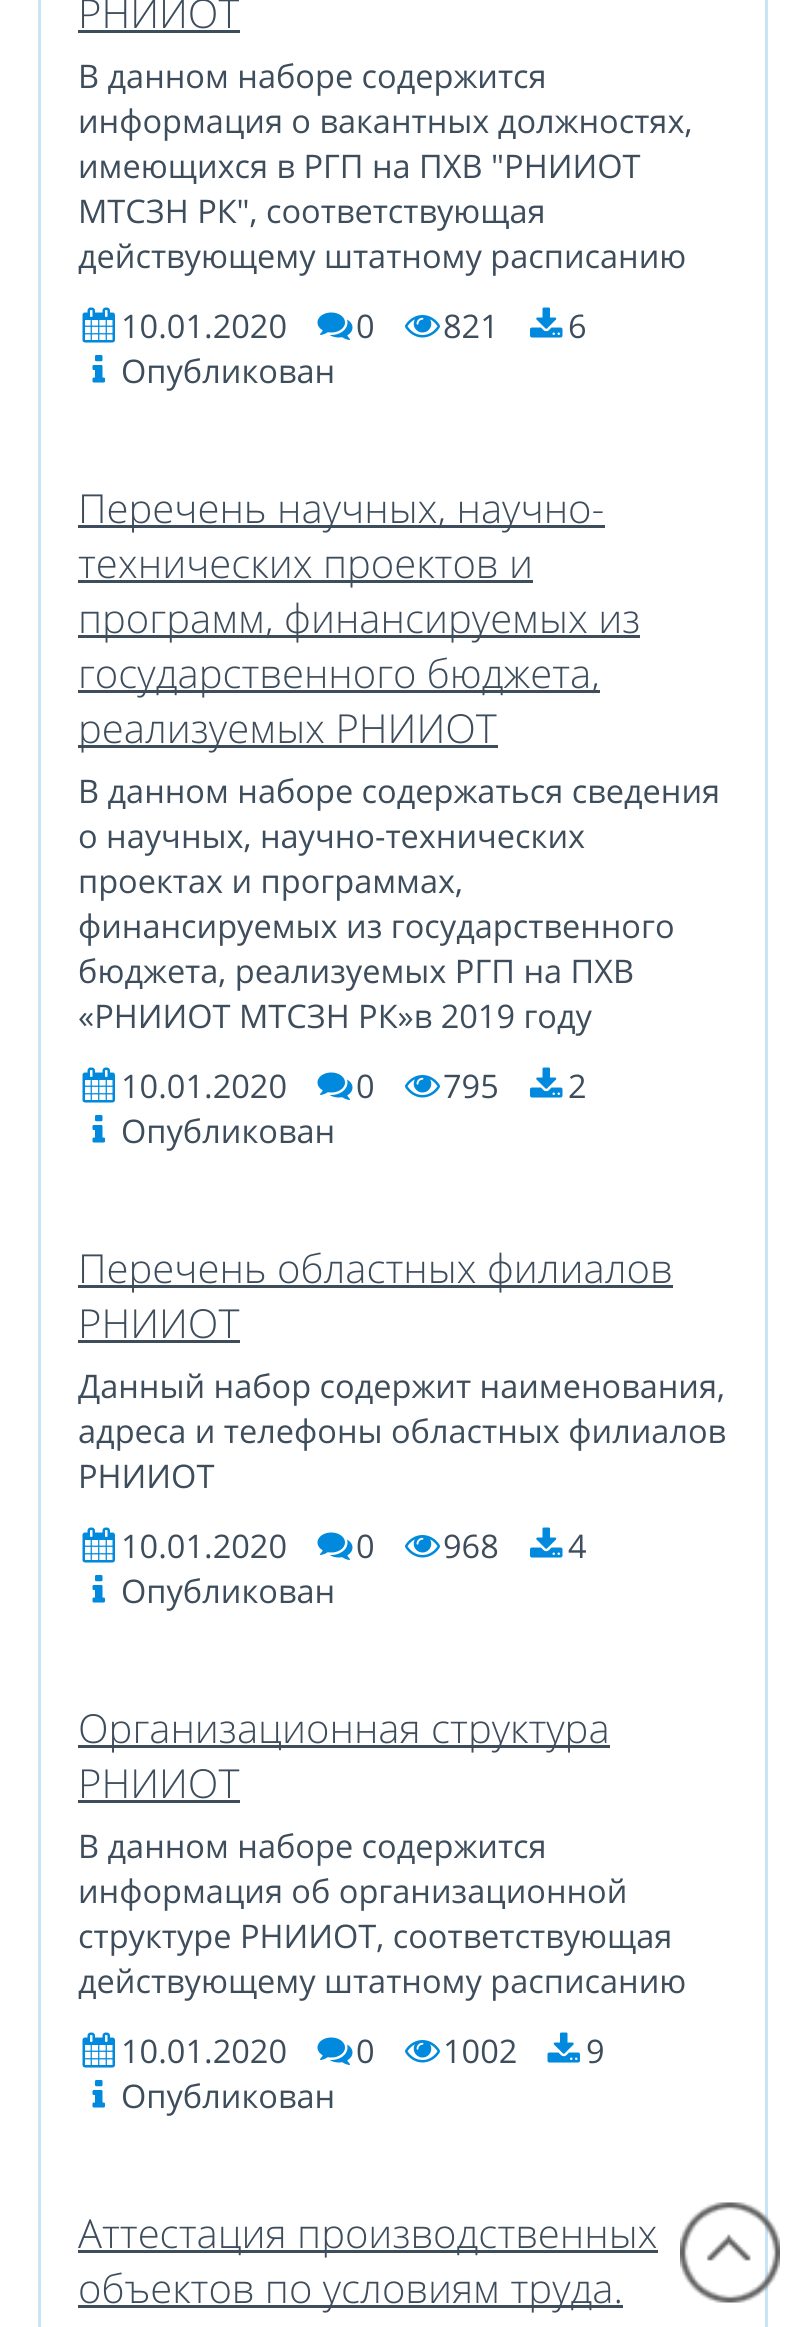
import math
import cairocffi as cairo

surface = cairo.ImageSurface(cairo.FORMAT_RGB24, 805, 2327)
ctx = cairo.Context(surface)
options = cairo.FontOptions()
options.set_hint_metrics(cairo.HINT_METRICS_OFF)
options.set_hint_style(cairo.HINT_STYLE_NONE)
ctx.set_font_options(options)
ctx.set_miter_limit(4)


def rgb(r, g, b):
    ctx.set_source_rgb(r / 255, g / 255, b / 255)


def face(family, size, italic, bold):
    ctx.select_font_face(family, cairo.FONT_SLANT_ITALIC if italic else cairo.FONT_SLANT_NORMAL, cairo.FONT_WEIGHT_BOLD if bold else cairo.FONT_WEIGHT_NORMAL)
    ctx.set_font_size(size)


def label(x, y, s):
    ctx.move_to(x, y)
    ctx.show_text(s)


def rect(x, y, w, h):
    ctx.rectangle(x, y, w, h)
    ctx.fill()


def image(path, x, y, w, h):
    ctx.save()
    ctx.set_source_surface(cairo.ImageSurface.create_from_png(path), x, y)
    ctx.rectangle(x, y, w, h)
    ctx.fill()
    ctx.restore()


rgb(255, 255, 255)
ctx.paint()
ctx.rectangle(39.5, -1.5, 727, 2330)
rgb(200, 228, 245)
ctx.set_line_width(3)
ctx.stroke()
face('Open Sans Light', 40, 0, 0)
rgb(62, 77, 92)
label(78, 28, 'РНИИОТ')
rect(78, 30, 162, 3)
face('Open Sans', 32.5, 0, 0)
label(78, 88, 'В данном наборе содержится')
label(78, 133, 'информация о вакантных должностях,')
label(78, 178, 'имеющихся в РГП на ПХВ "РНИИОТ')
label(78, 223, 'МТСЗН РК", соответствующая')
label(78, 268, 'действующему штатному расписанию')
image('image0.png', 82, 307, 33, 36)
label(121, 338, '10.01.2020')
image('image1.png', 317, 312, 36, 28)
label(356, 338, '0')
image('image2.png', 405, 315, 35, 23)
label(443, 338, '821')
image('image3.png', 530, 307, 33, 31)
label(568, 338, '6')
image('image4.png', 92, 355, 13, 28)
label(121, 383, 'Опубликован')
rect(78, 525, 527, 3)
face('Open Sans Light', 40, 0, 0)
label(78, 523, 'Перечень научных, научно-')
rect(78, 580, 455, 3)
label(78, 578, 'технических проектов и')
rect(78, 635, 562, 3)
label(78, 633, 'программ, финансируемых из')
rect(78, 690, 522, 3)
label(78, 688, 'государственного бюджета,')
rect(78, 745, 420, 3)
label(78, 743, 'реализуемых РНИИОТ')
face('Open Sans', 32.5, 0, 0)
label(78, 803, 'В данном наборе содержаться сведения')
label(78, 848, 'о научных, научно-технических')
label(78, 893, 'проектах и программах,')
label(78, 938, 'финансируемых из государственного')
label(78, 983, 'бюджета, реализуемых РГП на ПХВ')
label(78, 1028, '«РНИИОТ МТСЗН РК»в 2019 году')
image('image0.png', 82, 1067, 33, 36)
label(121, 1098, '10.01.2020')
image('image1.png', 317, 1072, 36, 28)
label(356, 1098, '0')
image('image2.png', 405, 1075, 35, 23)
label(443, 1098, '795')
image('image3.png', 530, 1067, 33, 31)
label(568, 1098, '2')
image('image4.png', 92, 1115, 13, 28)
label(121, 1143, 'Опубликован')
rect(78, 1285, 595, 3)
face('Open Sans Light', 40, 0, 0)
label(78, 1283, 'Перечень областных филиалов')
label(78, 1338, 'РНИИОТ')
rect(78, 1340, 162, 3)
face('Open Sans', 32.5, 0, 0)
label(78, 1398, 'Данный набор содержит наименования,')
label(78, 1443, 'адреса и телефоны областных филиалов')
label(78, 1488, 'РНИИОТ')
image('image0.png', 82, 1527, 33, 36)
label(121, 1558, '10.01.2020')
image('image1.png', 317, 1532, 36, 28)
label(356, 1558, '0')
image('image2.png', 405, 1535, 35, 23)
label(443, 1558, '968')
image('image3.png', 530, 1527, 33, 31)
label(568, 1558, '4')
image('image4.png', 92, 1575, 13, 28)
label(121, 1603, 'Опубликован')
rect(78, 1745, 532, 3)
face('Open Sans Light', 40, 0, 0)
label(78, 1743, 'Организационная структура')
label(78, 1798, 'РНИИОТ')
rect(78, 1800, 162, 3)
face('Open Sans', 32.5, 0, 0)
label(78, 1858, 'В данном наборе содержится')
label(78, 1903, 'информация об организационной')
label(78, 1948, 'структуре РНИИОТ, соответствующая')
label(78, 1993, 'действующему штатному расписанию')
image('image0.png', 82, 2032, 33, 36)
label(121, 2063, '10.01.2020')
image('image1.png', 317, 2037, 36, 28)
label(356, 2063, '0')
image('image2.png', 405, 2040, 35, 23)
label(443, 2063, '1002')
image('image5.png', 547, 2032, 33, 31)
label(586, 2063, '9')
image('image4.png', 92, 2080, 13, 28)
label(121, 2108, 'Опубликован')
rect(78, 2250, 580, 3)
face('Open Sans Light', 40, 0, 0)
label(78, 2248, 'Аттестация производственных')
rect(78, 2305, 545, 3)
label(78, 2303, 'объектов по условиям труда.')
image('image6.png', 680, 2202, 100, 101)
surface.write_to_png('render.png')
